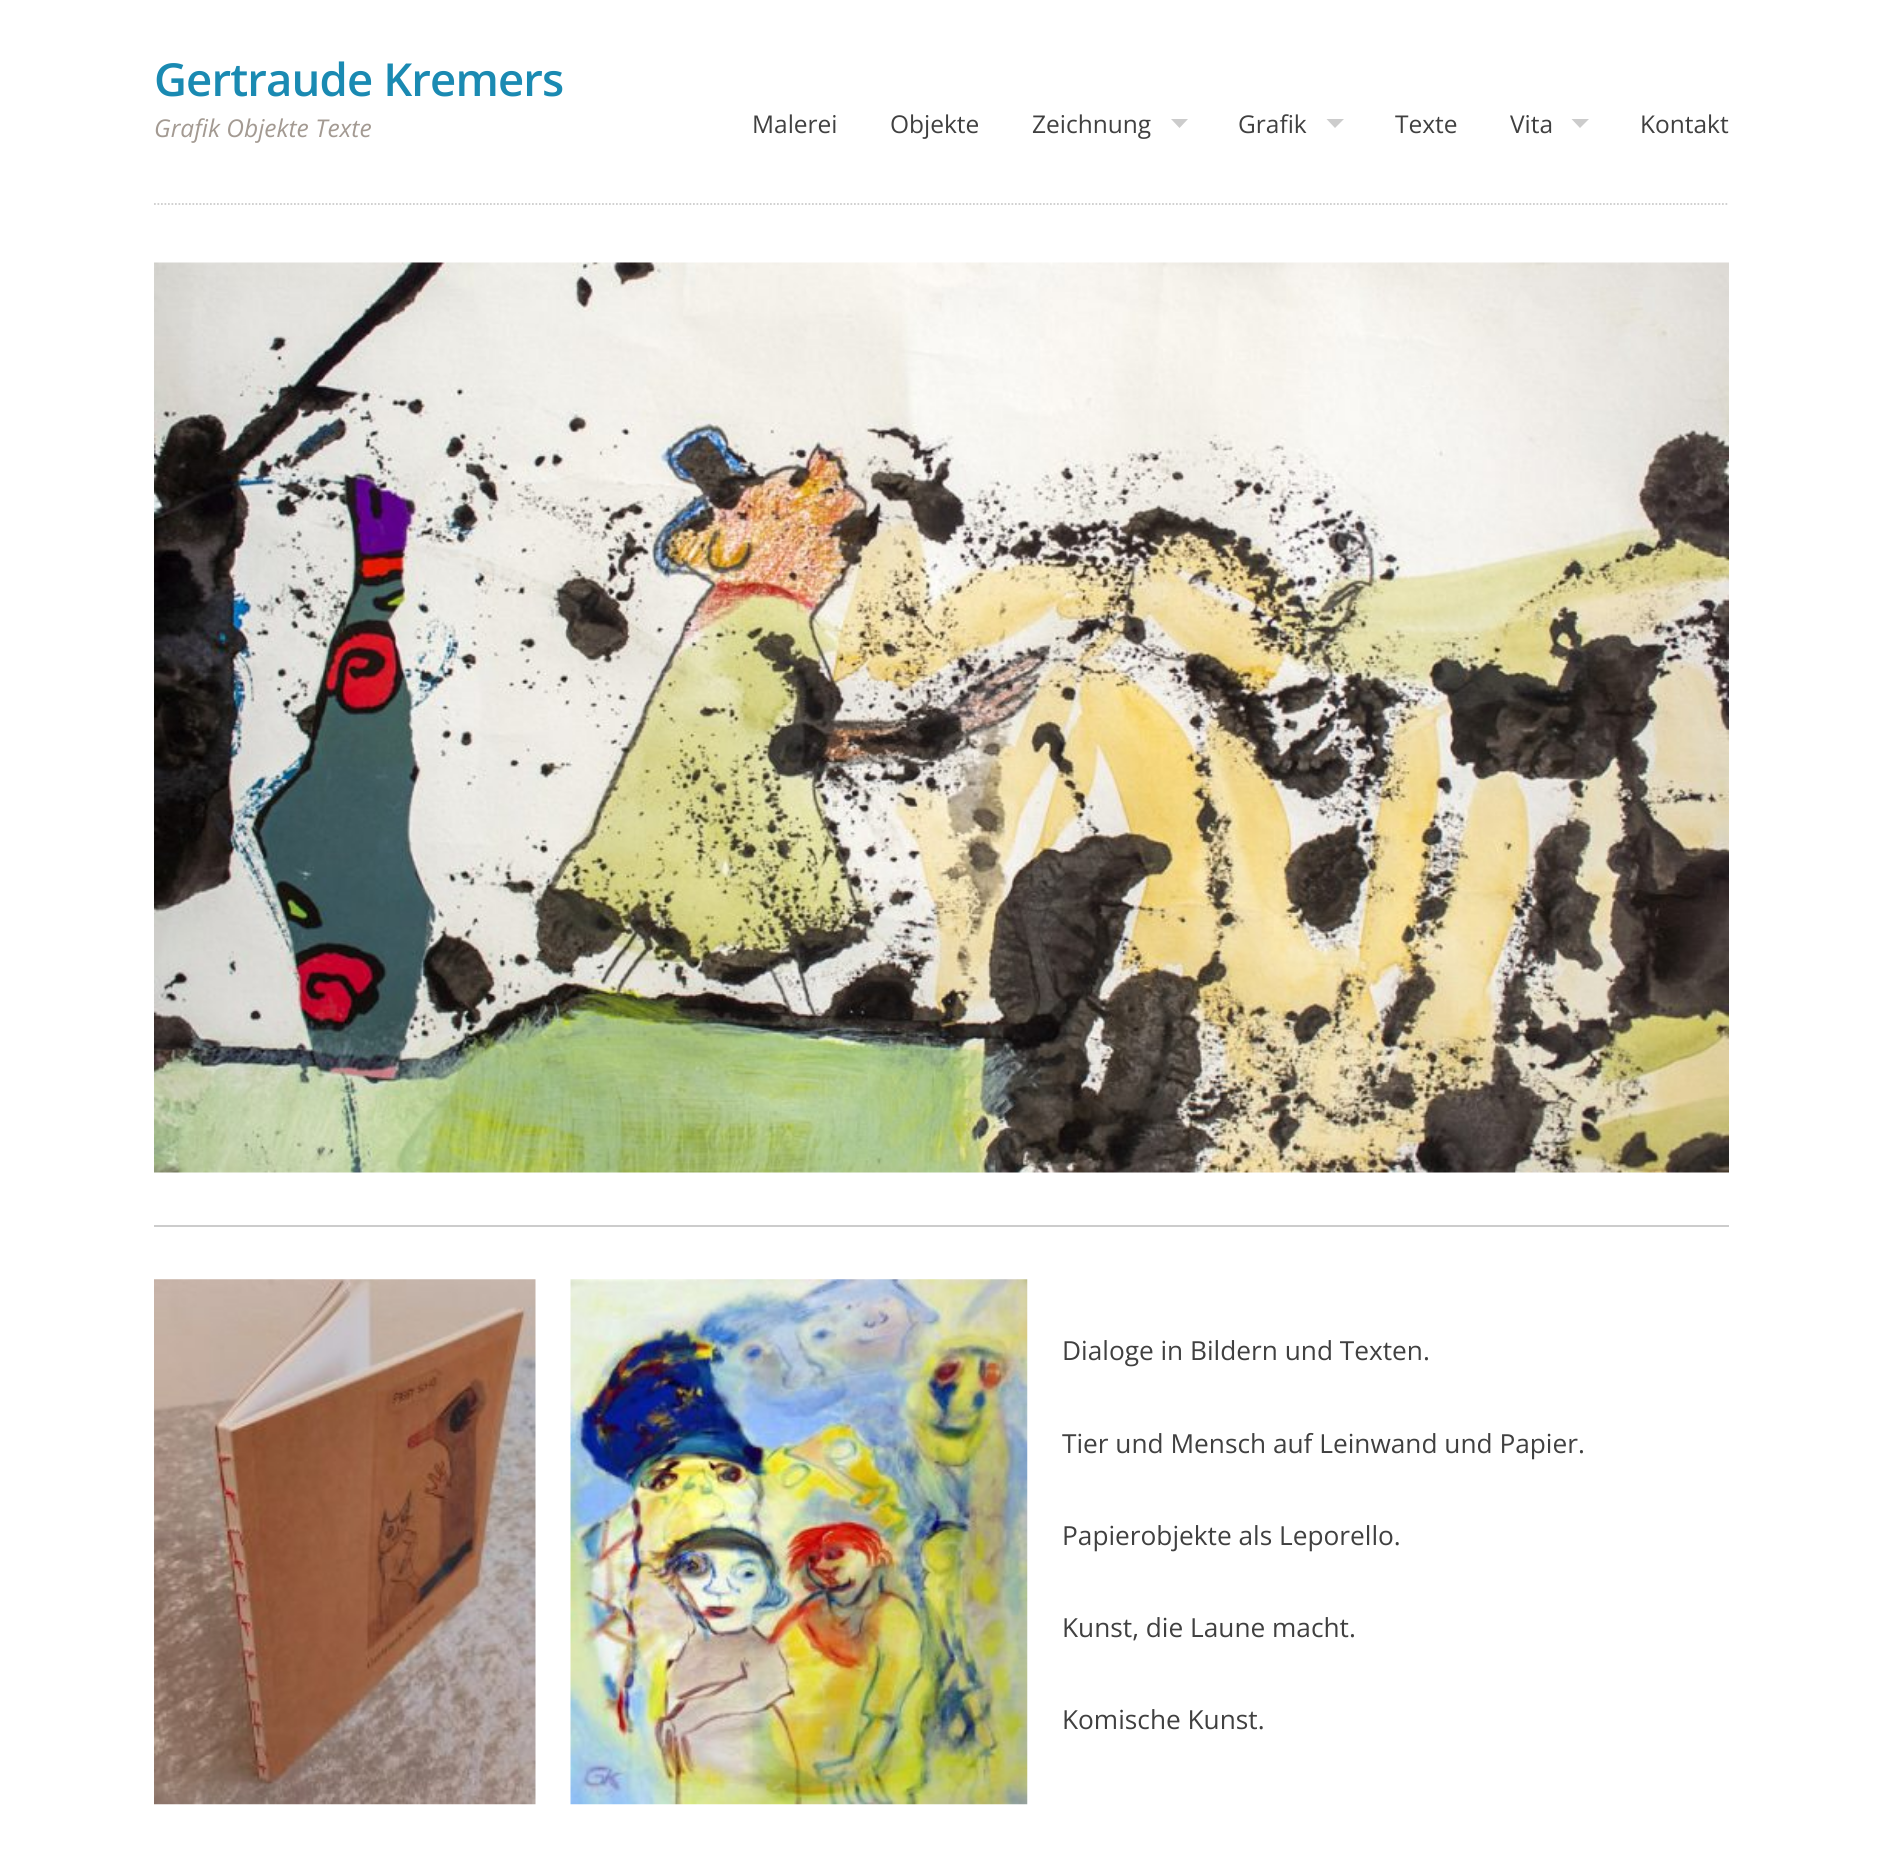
import math
import cairocffi as cairo

surface = cairo.ImageSurface(cairo.FORMAT_RGB24, 1882, 1861)
ctx = cairo.Context(surface)
options = cairo.FontOptions()
options.set_hint_metrics(cairo.HINT_METRICS_OFF)
options.set_hint_style(cairo.HINT_STYLE_NONE)
ctx.set_font_options(options)
ctx.set_miter_limit(4)


def rgb(r, g, b):
    ctx.set_source_rgb(r / 255, g / 255, b / 255)


def face(family, size, italic, bold):
    ctx.select_font_face(family, cairo.FONT_SLANT_ITALIC if italic else cairo.FONT_SLANT_NORMAL, cairo.FONT_WEIGHT_BOLD if bold else cairo.FONT_WEIGHT_NORMAL)
    ctx.set_font_size(size)


def label(x, y, s):
    ctx.move_to(x, y)
    ctx.show_text(s)


def tracked(x, y, s, letter, word):
    ctx.move_to(x, y)
    for ch in s:
        ctx.show_text(ch)
        ctx.rel_move_to(letter + word * (ch == ' '), 0)


def rect(x, y, w, h):
    ctx.rectangle(x, y, w, h)
    ctx.fill()


def image(path, x, y, w, h):
    ctx.save()
    ctx.set_source_surface(cairo.ImageSurface.create_from_png(path), x, y)
    ctx.rectangle(x, y, w, h)
    ctx.fill()
    ctx.restore()


rgb(255, 255, 255)
ctx.paint()
face('Open Sans SemiBold', 45.5, 0, 0)
rgb(26, 138, 178)
tracked(154, 96, 'Gertraude Kremers', -0.9, 0)
face('Open Sans', 24.5, 1, 0)
rgb(163, 154, 146)
label(154, 137, 'Grafik Objekte Texte')
face('Open Sans', 24.5, 0, 0)
rgb(64, 64, 64)
label(752, 133, 'Malerei')
label(890, 133, 'Objekte')
label(1032, 133, 'Zeichnung')
rgb(204, 204, 204)
ctx.new_path()
ctx.move_to(1171, 119)
ctx.line_to(1188, 119)
ctx.line_to(1179.5, 128)
ctx.close_path()
ctx.fill()
rgb(64, 64, 64)
label(1238, 133, 'Grafik')
rgb(204, 204, 204)
ctx.new_path()
ctx.move_to(1326.5, 119)
ctx.line_to(1344, 119)
ctx.line_to(1335, 128)
ctx.close_path()
ctx.fill()
rgb(64, 64, 64)
label(1395, 133, 'Texte')
label(1510, 133, 'Vita')
rgb(204, 204, 204)
ctx.new_path()
ctx.move_to(1571.5, 119)
ctx.line_to(1589, 119)
ctx.line_to(1580, 128)
ctx.close_path()
ctx.fill()
rgb(64, 64, 64)
label(1640, 133, 'Kontakt')
ctx.new_path()
ctx.move_to(154, 204)
ctx.line_to(1729, 204)
rgb(204, 204, 204)
ctx.set_line_width(1.8)
ctx.set_dash([1.75, 1.75])
ctx.stroke()
image('image0.png', 154, 262, 1575, 911)
rect(154, 1225, 1575, 2)
image('image1.png', 154, 1279, 382, 526)
image('image2.png', 570, 1279, 458, 526)
face('Open Sans', 26.25, 0, 0)
rgb(64, 64, 64)
label(1062, 1360, 'Dialoge in Bildern und Texten.')
label(1062, 1453, 'Tier und Mensch auf Leinwand und Papier.')
label(1062, 1545, 'Papierobjekte als Leporello.')
label(1062, 1637, 'Kunst, die Laune macht.')
label(1062, 1729, 'Komische Kunst.')
surface.write_to_png('render.png')
